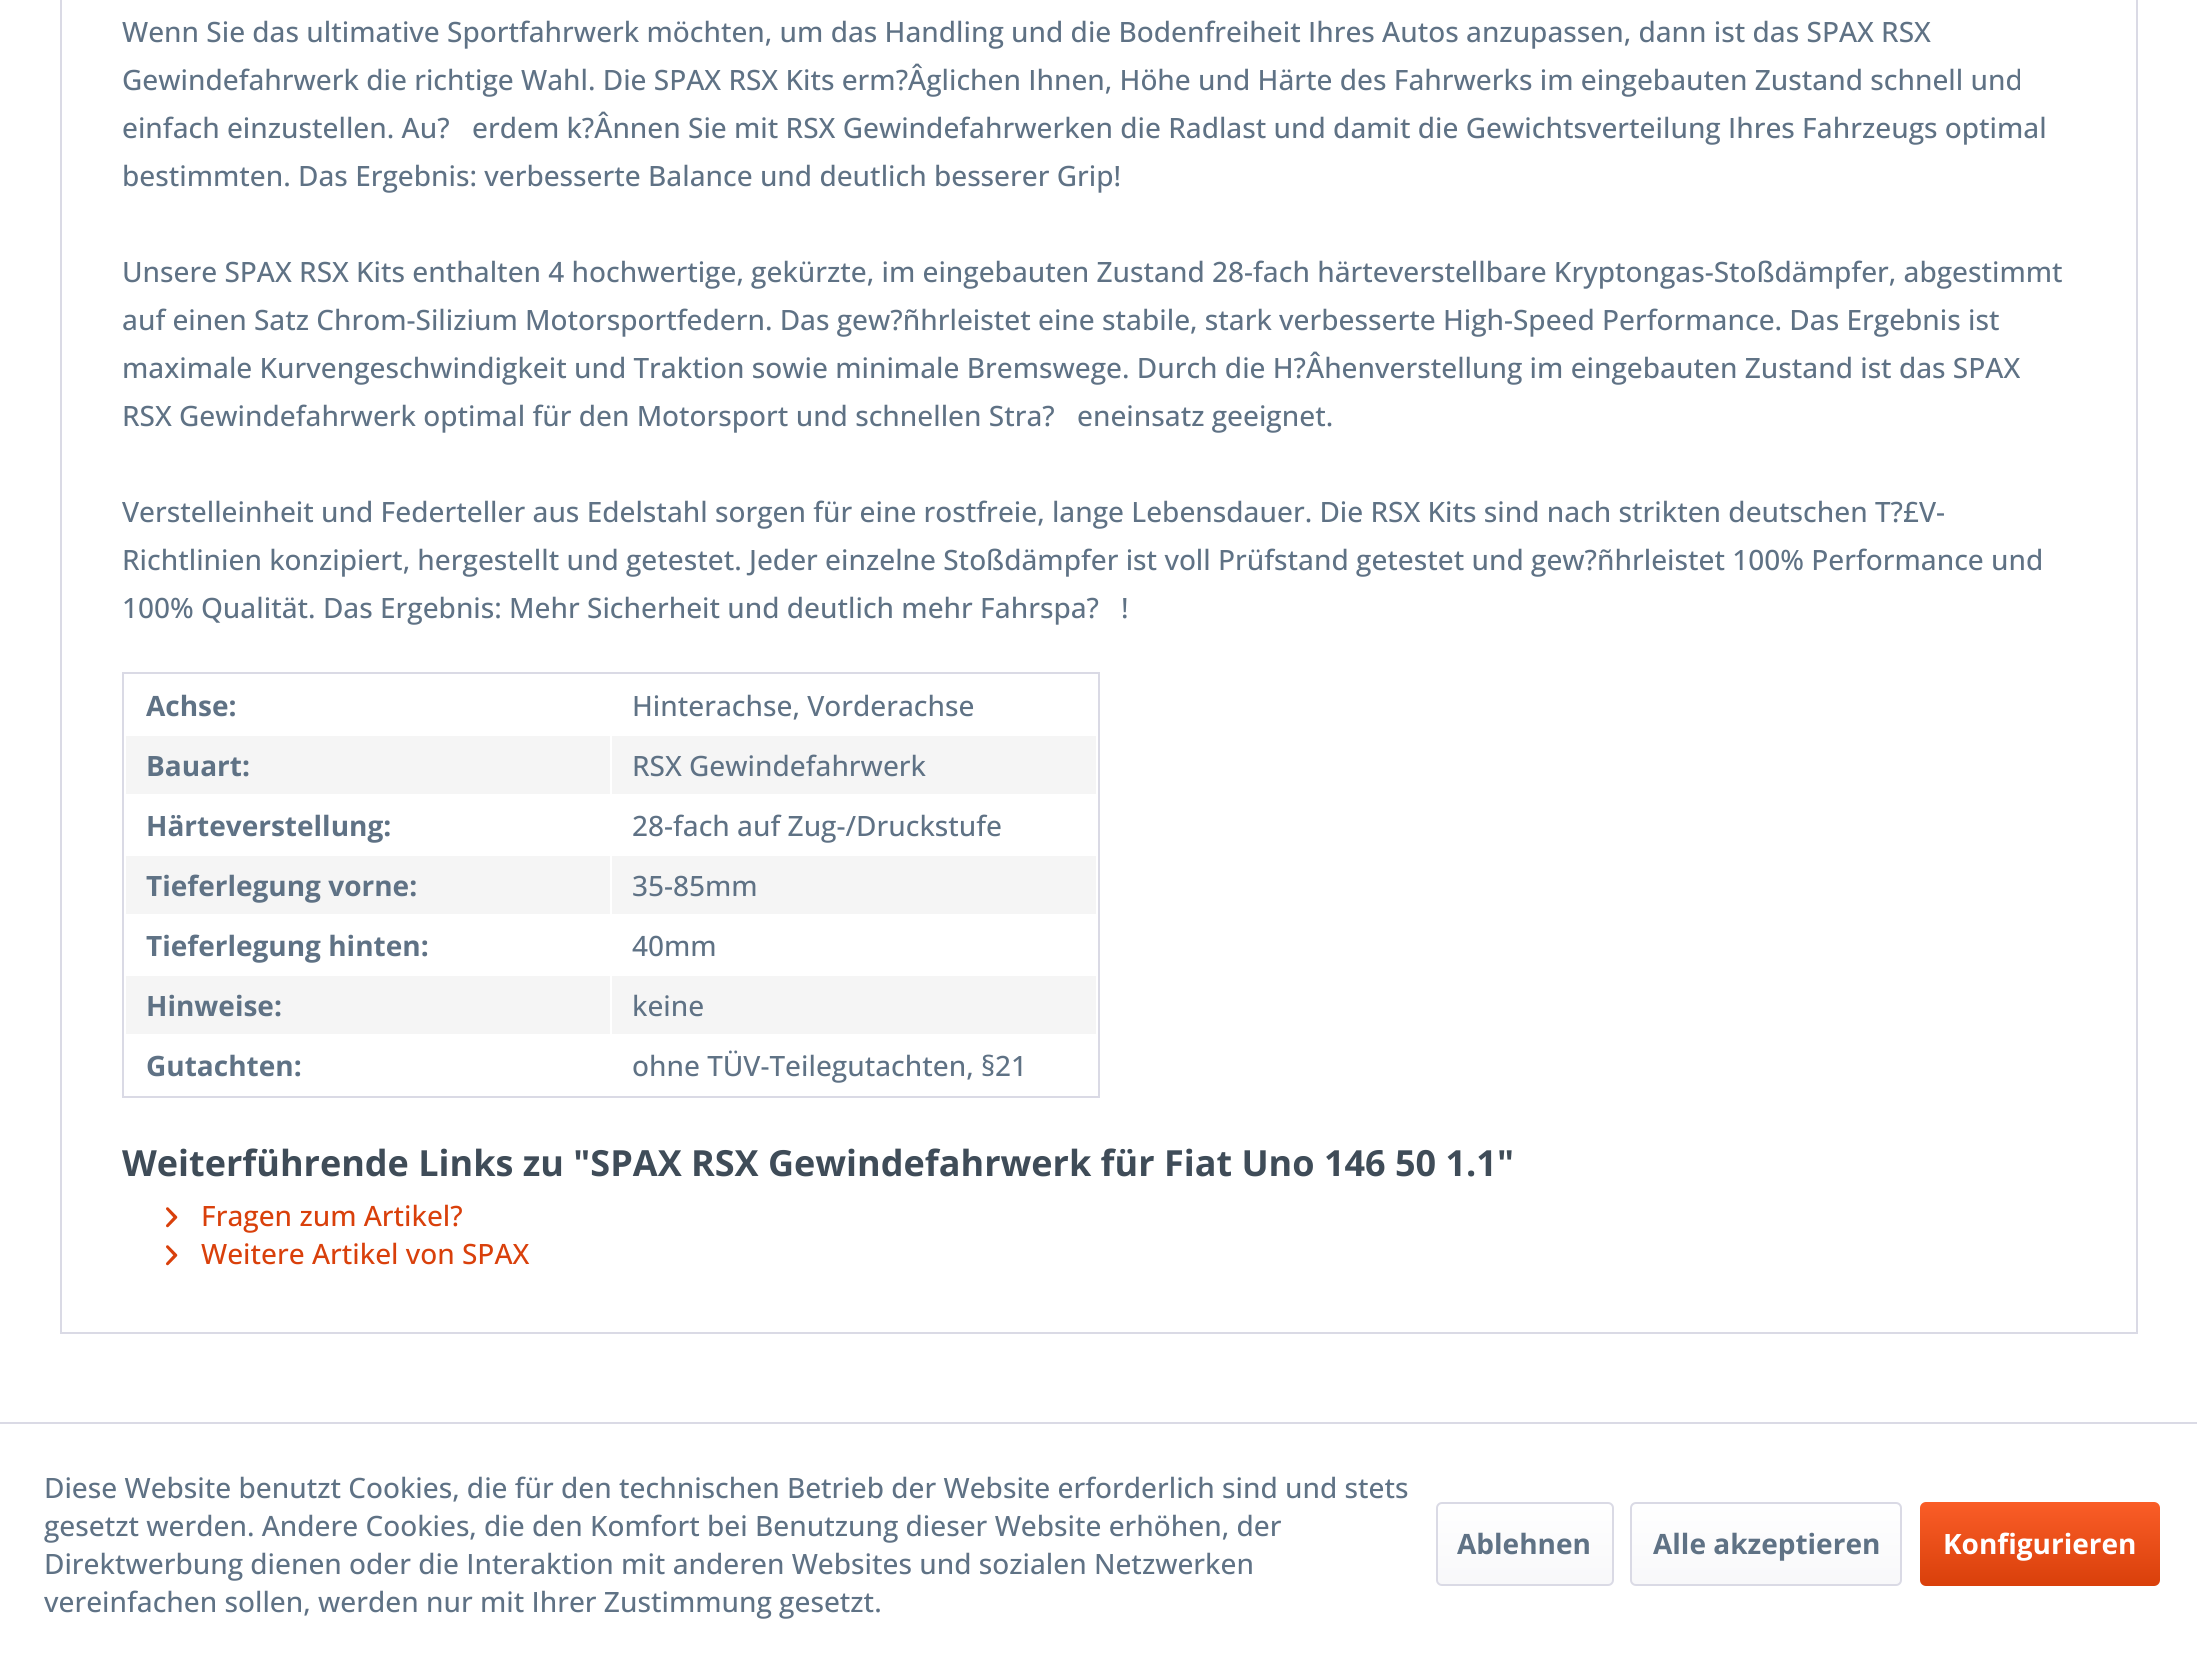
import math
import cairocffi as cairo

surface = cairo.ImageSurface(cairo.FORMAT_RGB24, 2197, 1663)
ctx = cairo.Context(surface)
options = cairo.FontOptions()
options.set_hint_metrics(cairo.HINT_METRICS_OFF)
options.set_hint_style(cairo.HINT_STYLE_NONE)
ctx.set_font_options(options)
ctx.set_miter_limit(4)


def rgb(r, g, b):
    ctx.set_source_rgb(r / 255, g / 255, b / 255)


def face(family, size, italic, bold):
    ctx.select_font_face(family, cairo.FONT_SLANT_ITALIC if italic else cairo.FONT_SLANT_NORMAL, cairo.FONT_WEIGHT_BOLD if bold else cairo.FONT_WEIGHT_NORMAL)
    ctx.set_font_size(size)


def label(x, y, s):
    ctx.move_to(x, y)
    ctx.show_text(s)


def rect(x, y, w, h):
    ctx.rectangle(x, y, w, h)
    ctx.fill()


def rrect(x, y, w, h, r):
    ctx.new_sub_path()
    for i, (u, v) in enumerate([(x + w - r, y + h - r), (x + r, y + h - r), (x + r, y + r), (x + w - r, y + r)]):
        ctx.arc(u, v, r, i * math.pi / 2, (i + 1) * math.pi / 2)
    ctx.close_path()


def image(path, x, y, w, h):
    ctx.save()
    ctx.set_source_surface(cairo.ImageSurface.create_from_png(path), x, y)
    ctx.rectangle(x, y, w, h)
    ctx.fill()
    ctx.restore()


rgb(255, 255, 255)
ctx.paint()
ctx.rectangle(61, -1, 2076, 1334)
rgb(218, 218, 229)
ctx.stroke()
face('Open Sans Medium', 28, 0, 0)
rgb(95, 114, 133)
label(122, 42, 'Wenn Sie das ultimative Sportfahrwerk möchten, um das Handling und die Bodenfreiheit Ihres Autos anzupassen, dann ist das SPAX RSX')
label(122, 90, 'Gewindefahrwerk die richtige Wahl. Die SPAX RSX Kits erm?Âglichen Ihnen, Höhe und Härte des Fahrwerks im eingebauten Zustand schnell und')
label(122, 138, 'einfach einzustellen. Au?')
label(472, 138, 'erdem k?Ânnen Sie mit RSX Gewindefahrwerken die Radlast und damit die Gewichtsverteilung Ihres Fahrzeugs optimal')
label(122, 186, 'bestimmten. Das Ergebnis: verbesserte Balance und deutlich besserer Grip!')
label(122, 282, 'Unsere SPAX RSX Kits enthalten 4 hochwertige, gekürzte, im eingebauten Zustand 28-fach härteverstellbare Kryptongas-Stoßdämpfer, abgestimmt')
label(122, 330, 'auf einen Satz Chrom-Silizium Motorsportfedern. Das gew?ñhrleistet eine stabile, stark verbesserte High-Speed Performance. Das Ergebnis ist')
label(122, 378, 'maximale Kurvengeschwindigkeit und Traktion sowie minimale Bremswege. Durch die H?Âhenverstellung im eingebauten Zustand ist das SPAX')
label(122, 426, 'RSX Gewindefahrwerk optimal für den Motorsport und schnellen Stra?')
label(1077, 426, 'eneinsatz geeignet.')
label(122, 522, 'Verstelleinheit und Federteller aus Edelstahl sorgen für eine rostfreie, lange Lebensdauer. Die RSX Kits sind nach strikten deutschen T?£V-')
label(122, 570, 'Richtlinien konzipiert, hergestellt und getestet. Jeder einzelne Stoßdämpfer ist voll Prüfstand getestet und gew?ñhrleistet 100% Performance und')
label(122, 618, '100% Qualität. Das Ergebnis: Mehr Sicherheit und deutlich mehr Fahrspa?')
label(1121, 618, '!')
ctx.rectangle(123, 673, 976, 424)
rgb(218, 218, 229)
ctx.stroke()
face('Open Sans', 28, 0, 1)
rgb(95, 114, 133)
label(146, 716, 'Achse:')
face('Open Sans Medium', 28, 0, 0)
label(632, 716, 'Hinterachse, Vorderachse')
rgb(245, 245, 245)
rect(126, 736, 484, 58)
face('Open Sans', 28, 0, 1)
rgb(95, 114, 133)
label(146, 776, 'Bauart:')
rgb(245, 245, 245)
rect(612, 736, 484, 58)
face('Open Sans Medium', 28, 0, 0)
rgb(95, 114, 133)
label(632, 776, 'RSX Gewindefahrwerk')
face('Open Sans', 28, 0, 1)
label(146, 836, 'Härteverstellung:')
face('Open Sans Medium', 28, 0, 0)
label(632, 836, '28-fach auf Zug-/Druckstufe')
rgb(245, 245, 245)
rect(126, 856, 484, 58)
face('Open Sans', 28, 0, 1)
rgb(95, 114, 133)
label(146, 896, 'Tieferlegung vorne:')
rgb(245, 245, 245)
rect(612, 856, 484, 58)
face('Open Sans Medium', 28, 0, 0)
rgb(95, 114, 133)
label(632, 896, '35-85mm')
face('Open Sans', 28, 0, 1)
label(146, 956, 'Tieferlegung hinten:')
face('Open Sans Medium', 28, 0, 0)
label(632, 956, '40mm')
rgb(245, 245, 245)
rect(126, 976, 484, 58)
face('Open Sans', 28, 0, 1)
rgb(95, 114, 133)
label(146, 1016, 'Hinweise:')
rgb(245, 245, 245)
rect(612, 976, 484, 58)
face('Open Sans Medium', 28, 0, 0)
rgb(95, 114, 133)
label(632, 1016, 'keine')
face('Open Sans', 28, 0, 1)
label(146, 1076, 'Gutachten:')
face('Open Sans Medium', 28, 0, 0)
label(632, 1076, 'ohne TÜV-Teilegutachten, §21')
face('Open Sans', 36, 0, 1)
rgb(63, 76, 88)
label(122, 1176, 'Weiterführende Links zu "SPAX RSX Gewindefahrwerk für Fiat Uno 146 50 1.1"')
image('image0.png', 166, 1207, 12, 21)
face('Open Sans Medium', 28, 0, 0)
rgb(217, 64, 11)
label(201, 1226, 'Fragen zum Artikel?')
image('image0.png', 166, 1245, 12, 21)
label(201, 1264, 'Weitere Artikel von SPAX')
rgb(218, 218, 229)
rect(0, 1422, 2197, 2)
rgb(95, 114, 133)
label(44, 1498, 'Diese Website benutzt Cookies, die für den technischen Betrieb der Website erforderlich sind und stets')
label(44, 1536, 'gesetzt werden. Andere Cookies, die den Komfort bei Benutzung dieser Website erhöhen, der')
label(44, 1574, 'Direktwerbung dienen oder die Interaktion mit anderen Websites und sozialen Netzwerken')
label(44, 1612, 'vereinfachen sollen, werden nur mit Ihrer Zustimmung gesetzt.')
gradient = cairo.LinearGradient(1525, 1504, 1525, 1584)
gradient.add_color_stop_rgba(0, 1, 1, 1, 1)
gradient.add_color_stop_rgba(1, 0.973, 0.973, 0.98, 1)
ctx.set_source(gradient)
rrect(1438, 1504, 174, 80, 4)
ctx.fill()
rrect(1437, 1503, 176, 82, 5)
rgb(218, 218, 229)
ctx.stroke()
face('Open Sans', 28, 0, 1)
rgb(95, 114, 133)
label(1457, 1554, 'Ablehnen')
gradient = cairo.LinearGradient(1766, 1504, 1766, 1584)
gradient.add_color_stop_rgba(0, 1, 1, 1, 1)
gradient.add_color_stop_rgba(1, 0.973, 0.973, 0.98, 1)
ctx.set_source(gradient)
rrect(1632, 1504, 268, 80, 4)
ctx.fill()
rrect(1631, 1503, 270, 82, 5)
rgb(218, 218, 229)
ctx.stroke()
rgb(95, 114, 133)
label(1653, 1554, 'Alle akzeptieren')
gradient = cairo.LinearGradient(2040, 1502, 2040, 1586)
gradient.add_color_stop_rgba(0, 0.98, 0.365, 0.153, 1)
gradient.add_color_stop_rgba(1, 0.851, 0.251, 0.043, 1)
ctx.set_source(gradient)
rrect(1920, 1502, 240, 84, 6)
ctx.fill()
rgb(255, 255, 255)
label(1943, 1554, 'Konfigurieren')
surface.write_to_png('render.png')
